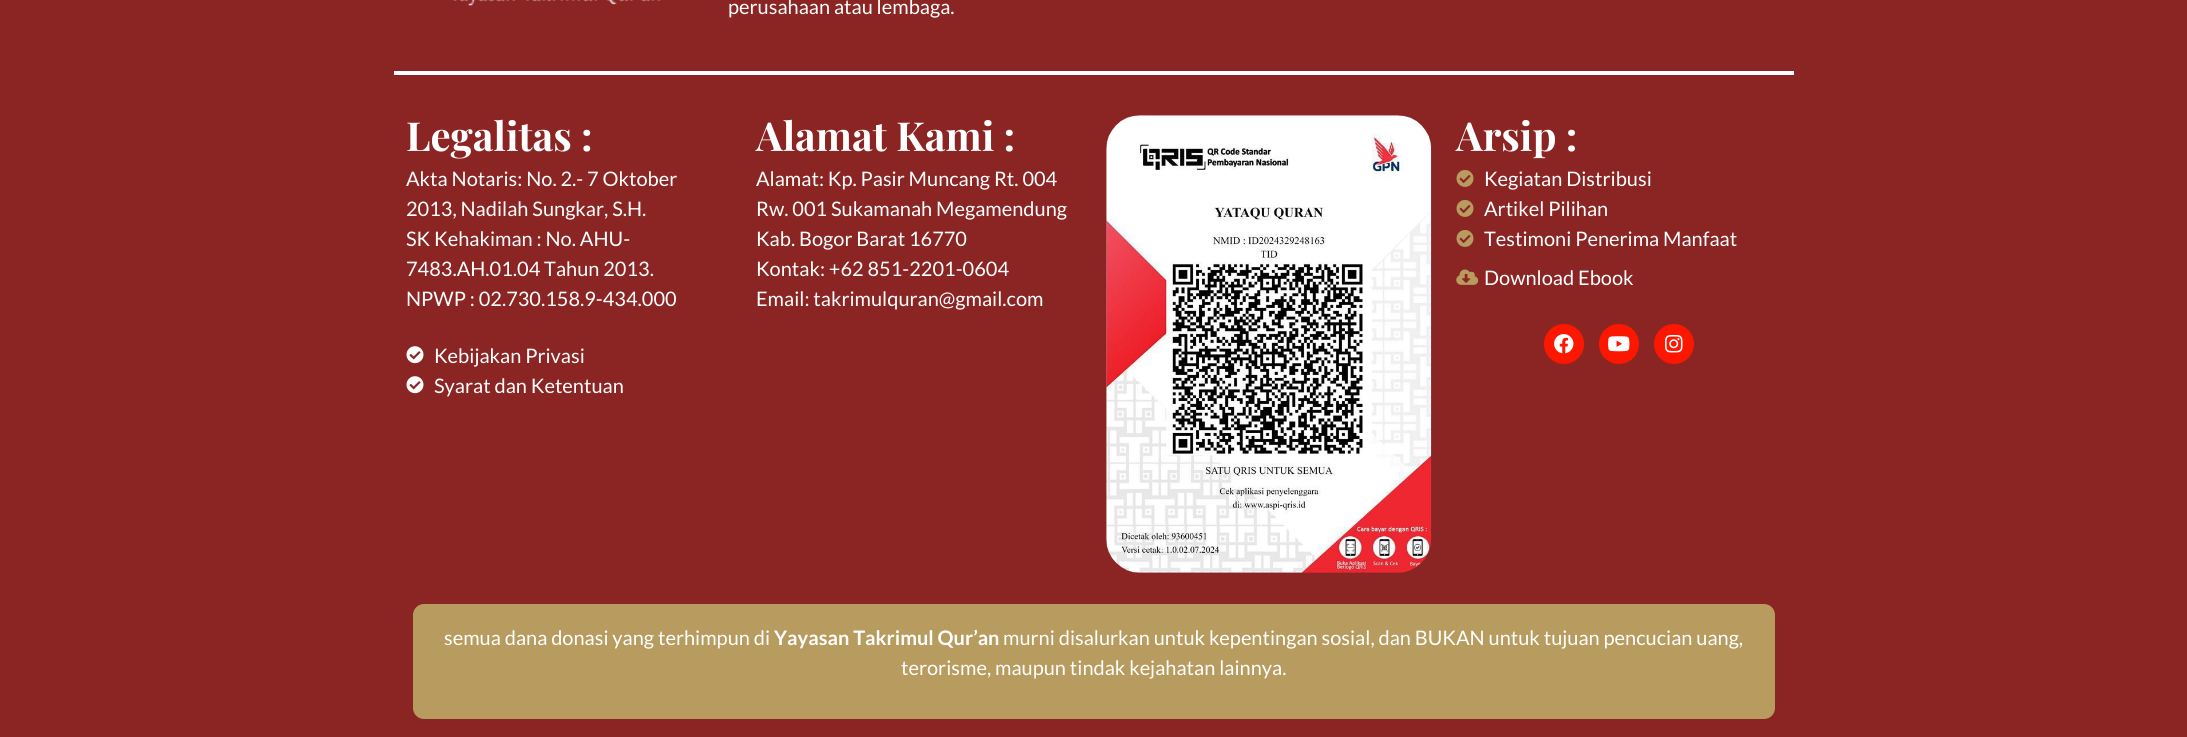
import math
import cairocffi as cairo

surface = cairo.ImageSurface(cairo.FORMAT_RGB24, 2187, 737)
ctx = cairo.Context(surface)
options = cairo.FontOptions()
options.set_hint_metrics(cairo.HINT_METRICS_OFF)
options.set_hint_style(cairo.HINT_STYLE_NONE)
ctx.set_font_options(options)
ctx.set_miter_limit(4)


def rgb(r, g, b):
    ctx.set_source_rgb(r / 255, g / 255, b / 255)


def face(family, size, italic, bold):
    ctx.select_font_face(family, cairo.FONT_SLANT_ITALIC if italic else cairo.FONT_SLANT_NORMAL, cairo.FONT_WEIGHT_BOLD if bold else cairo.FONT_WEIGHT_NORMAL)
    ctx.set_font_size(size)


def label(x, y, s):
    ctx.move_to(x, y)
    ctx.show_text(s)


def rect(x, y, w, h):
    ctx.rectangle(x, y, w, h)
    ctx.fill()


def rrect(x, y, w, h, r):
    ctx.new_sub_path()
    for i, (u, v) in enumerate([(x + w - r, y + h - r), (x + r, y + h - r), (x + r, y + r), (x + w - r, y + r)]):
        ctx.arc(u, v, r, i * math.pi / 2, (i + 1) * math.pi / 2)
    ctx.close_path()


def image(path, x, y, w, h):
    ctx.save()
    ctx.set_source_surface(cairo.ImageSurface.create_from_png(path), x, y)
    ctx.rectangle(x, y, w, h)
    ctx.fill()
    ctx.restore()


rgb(139, 37, 36)
ctx.paint()
image('image0.png', 453, 0, 208, 6)
face('Lato', 20, 0, 0)
rgb(255, 255, 255)
label(728, 14, 'perusahaan atau lembaga.')
rect(394, 71, 1400, 4)
face('Playfair Display', 40, 0, 1)
label(406, 151, 'Legalitas :')
face('Lato', 20, 0, 0)
label(406, 186, 'Akta Notaris: No. 2.- 7 Oktober')
label(406, 216, '2013, Nadilah Sungkar, S.H.')
label(406, 246, 'SK Kehakiman : No. AHU-')
label(406, 276, '7483.AH.01.04 Tahun 2013.')
label(406, 306, 'NPWP : 02.730.158.9-434.000')
image('image1.png', 406, 346, 18, 18)
label(434, 363, 'Kebijakan Privasi')
image('image1.png', 406, 376, 18, 18)
label(434, 393, 'Syarat dan Ketentuan')
face('Playfair Display', 40, 0, 1)
label(756, 151, 'Alamat Kami :')
face('Lato', 20, 0, 0)
label(756, 186, 'Alamat: Kp. Pasir Muncang Rt. 004')
label(756, 216, 'Rw. 001 Sukamanah Megamendung')
label(756, 246, 'Kab. Bogor Barat 16770')
label(756, 276, 'Kontak: +62 851-2201-0604')
label(756, 306, 'Email: takrimulquran@gmail.com')
image('image2.png', 1106, 115, 326, 458)
face('Playfair Display', 40, 0, 1)
label(1456, 151, 'Arsip :')
image('image3.png', 1456, 170, 18, 17)
face('Lato', 20, 0, 0)
label(1484, 186, 'Kegiatan Distribusi')
image('image3.png', 1456, 200, 18, 17)
label(1484, 216, 'Artikel Pilihan')
image('image3.png', 1456, 230, 18, 17)
label(1484, 246, 'Testimoni Penerima Manfaat')
image('image4.png', 1456, 269, 23, 16)
label(1484, 285, 'Download Ebook')
rgb(251, 23, 0)
ctx.new_path()
ctx.arc(1564, 344, 20, 0, 2 * math.pi)
ctx.fill()
image('image5.png', 1554, 334, 20, 20)
ctx.arc(1619, 344, 20, 0, 2 * math.pi)
ctx.fill()
image('image6.png', 1608, 336, 22, 16)
ctx.arc(1674, 344, 20, 0, 2 * math.pi)
ctx.fill()
image('image7.png', 1665, 334, 18, 19)
rgb(184, 155, 94)
rrect(413, 604, 1362, 115, 11)
ctx.fill()
rgb(255, 255, 255)
label(444, 645, 'semua dana donasi yang terhimpun di')
face('Lato', 20, 0, 1)
label(774, 645, 'Yayasan Takrimul Qur’an')
face('Lato', 20, 0, 0)
label(1003, 645, 'murni disalurkan untuk kepentingan sosial, dan BUKAN untuk tujuan pencucian uang,')
label(901, 675, 'terorisme, maupun tindak kejahatan lainnya.')
surface.write_to_png('render.png')
